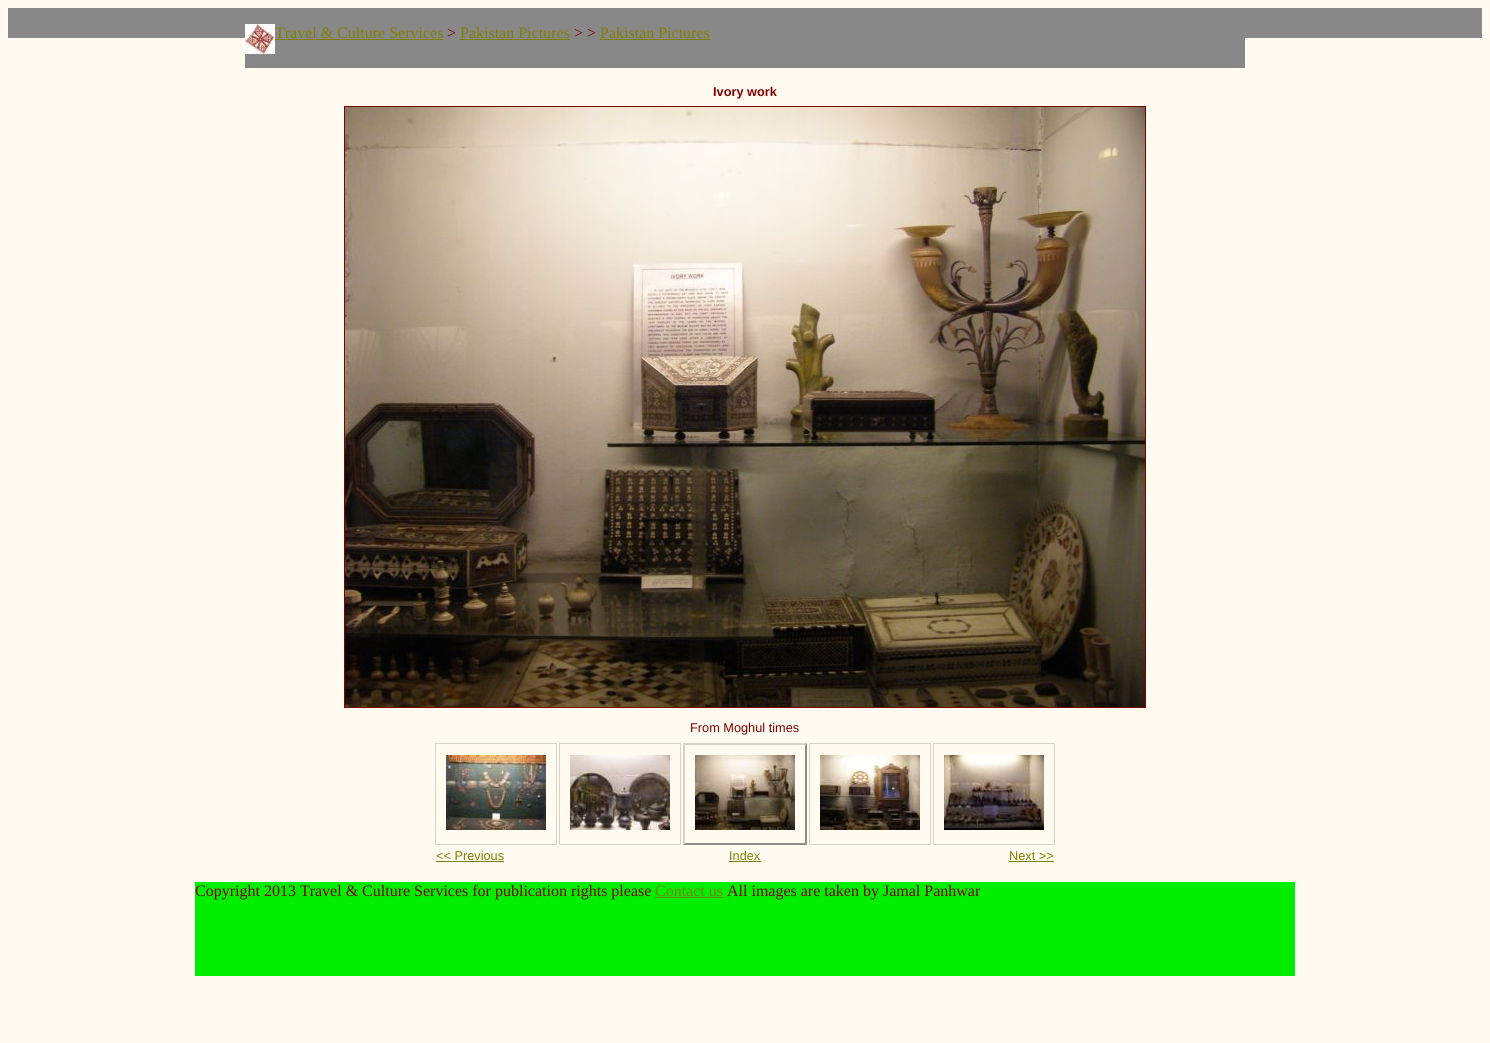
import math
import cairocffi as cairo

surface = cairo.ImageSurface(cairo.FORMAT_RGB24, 1490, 1043)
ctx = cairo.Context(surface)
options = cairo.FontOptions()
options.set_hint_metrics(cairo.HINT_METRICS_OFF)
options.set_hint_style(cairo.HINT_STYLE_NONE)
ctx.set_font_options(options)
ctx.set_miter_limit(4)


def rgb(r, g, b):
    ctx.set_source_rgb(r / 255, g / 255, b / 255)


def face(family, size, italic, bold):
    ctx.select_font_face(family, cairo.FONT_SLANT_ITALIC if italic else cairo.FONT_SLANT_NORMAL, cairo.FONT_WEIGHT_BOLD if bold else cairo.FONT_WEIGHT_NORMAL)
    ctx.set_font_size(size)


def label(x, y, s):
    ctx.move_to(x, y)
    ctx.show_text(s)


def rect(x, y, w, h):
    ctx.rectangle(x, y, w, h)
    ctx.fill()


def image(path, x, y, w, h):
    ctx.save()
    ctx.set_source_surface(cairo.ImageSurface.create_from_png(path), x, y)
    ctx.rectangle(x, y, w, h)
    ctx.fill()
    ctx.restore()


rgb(255, 251, 240)
ctx.paint()
rgb(136, 136, 136)
rect(8, 8, 1474, 30)
rect(245, 38, 1000, 30)
image('image0.png', 245, 24, 30, 30)
face('Liberation Serif', 16, 0, 0)
rgb(128, 128, 0)
label(275, 38, 'Travel & Culture Services')
rect(275, 39, 168, 1)
rgb(128, 0, 0)
label(447, 38, '>')
rgb(128, 128, 0)
label(460, 38, 'Pakistan Pictures')
rect(460, 39, 110, 1)
rgb(128, 0, 0)
label(574, 38, '> >')
rgb(128, 128, 0)
label(600, 38, 'Pakistan Pictures')
rect(600, 39, 110, 1)
face('Liberation Sans', 12.75, 0, 1)
rgb(128, 0, 0)
label(713, 96, 'Ivory work')
ctx.rectangle(344.5, 106.5, 801, 601)
ctx.set_line_width(1)
ctx.stroke()
image('image1.png', 345, 107, 800, 600)
face('Liberation Sans', 12.75, 0, 0)
label(690, 732, 'From Moghul times')
ctx.rectangle(435.5, 743.5, 121, 101)
rgb(215, 211, 200)
ctx.stroke()
image('image2.png', 446, 755, 100, 75)
ctx.rectangle(559.5, 743.5, 121, 101)
ctx.stroke()
image('image3.png', 570, 755, 100, 75)
ctx.new_path()
ctx.move_to(683, 743)
ctx.line_to(807, 743)
ctx.line_to(805, 745)
ctx.line_to(685, 745)
ctx.close_path()
ctx.fill()
rgb(143, 141, 133)
ctx.new_path()
ctx.move_to(807, 743)
ctx.line_to(807, 845)
ctx.line_to(805, 843)
ctx.line_to(805, 745)
ctx.close_path()
ctx.fill()
ctx.new_path()
ctx.move_to(807, 845)
ctx.line_to(683, 845)
ctx.line_to(685, 843)
ctx.line_to(805, 843)
ctx.close_path()
ctx.fill()
rgb(215, 211, 200)
ctx.new_path()
ctx.move_to(683, 845)
ctx.line_to(683, 743)
ctx.line_to(685, 745)
ctx.line_to(685, 843)
ctx.close_path()
ctx.fill()
image('image4.png', 695, 755, 100, 75)
ctx.rectangle(809.5, 743.5, 121, 101)
ctx.stroke()
image('image5.png', 820, 755, 100, 75)
ctx.rectangle(933.5, 743.5, 121, 101)
ctx.stroke()
image('image6.png', 944, 755, 100, 75)
rgb(128, 128, 0)
label(436, 860, '<< Previous')
rect(436, 861, 68, 1)
label(729, 860, 'Index')
rect(729, 861, 32, 1)
label(1009, 860, 'Next >>')
rect(1009, 861, 45, 1)
rgb(0, 238, 0)
rect(195, 882, 1100, 94)
face('Liberation Serif', 16, 0, 0)
rgb(128, 0, 0)
label(195, 896, 'Copyright 2013 Travel & Culture Services for publication rights please')
rgb(128, 128, 0)
label(655, 896, 'Contact us')
rect(655, 897, 68, 1)
rgb(128, 0, 0)
label(727, 896, 'All images are taken by Jamal Panhwar')
surface.write_to_png('render.png')
